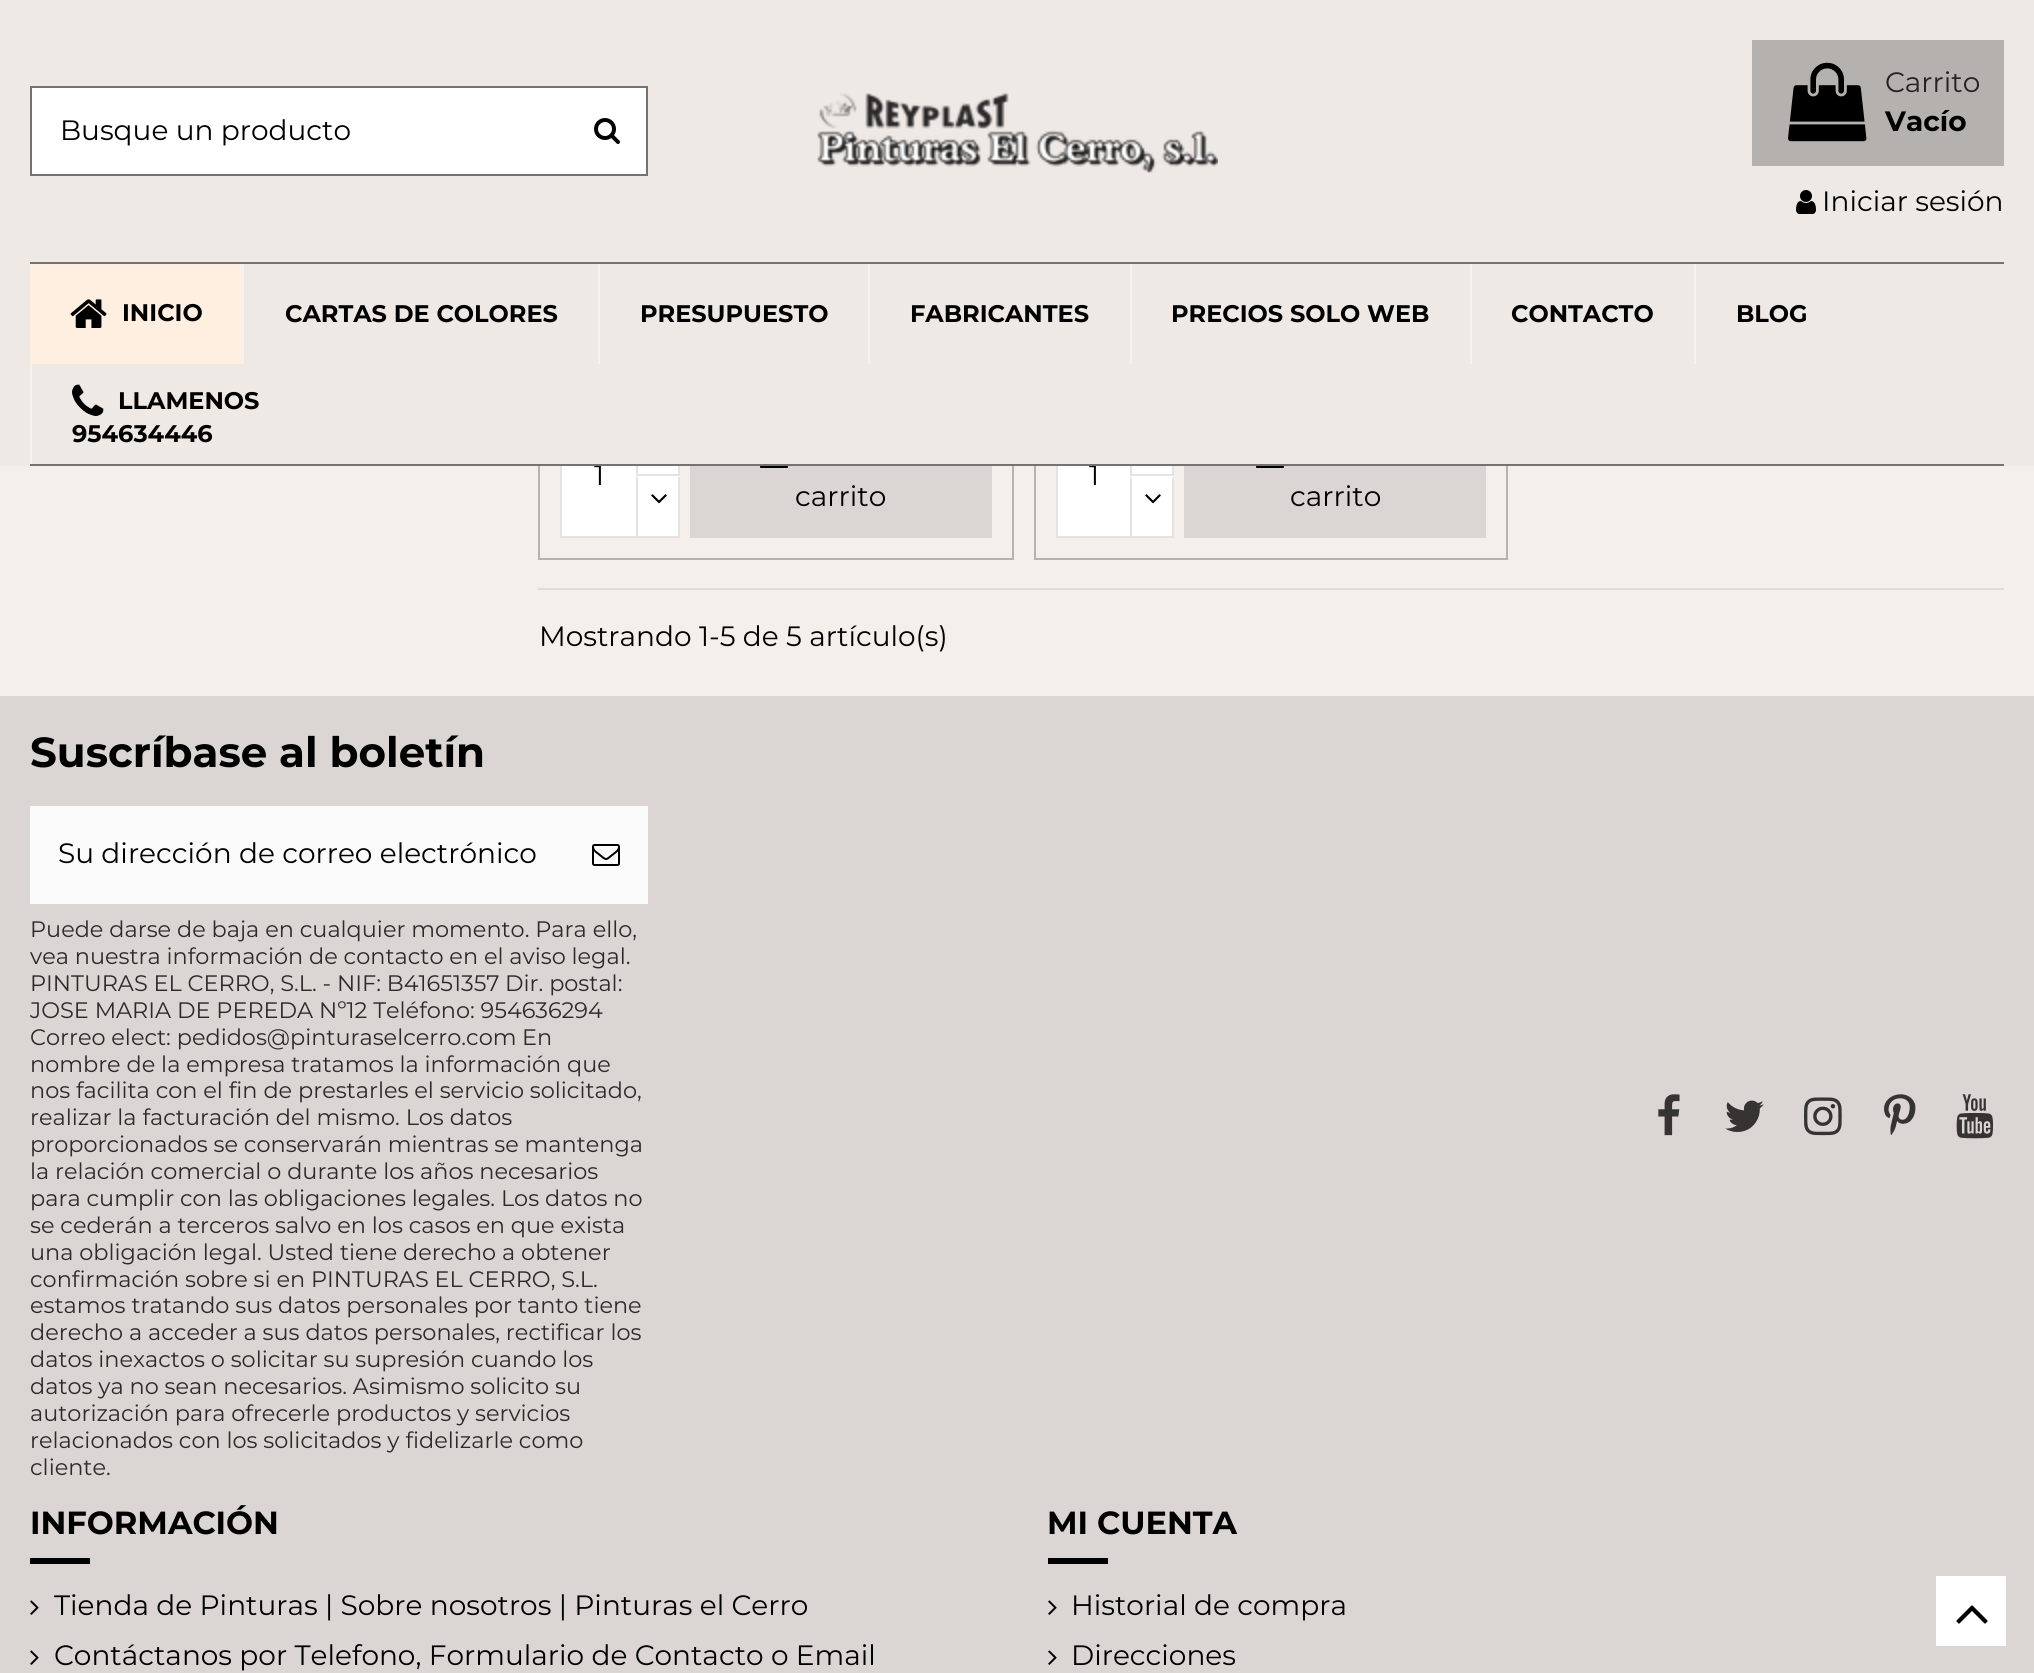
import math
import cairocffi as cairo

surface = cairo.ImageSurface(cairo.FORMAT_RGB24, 2034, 1673)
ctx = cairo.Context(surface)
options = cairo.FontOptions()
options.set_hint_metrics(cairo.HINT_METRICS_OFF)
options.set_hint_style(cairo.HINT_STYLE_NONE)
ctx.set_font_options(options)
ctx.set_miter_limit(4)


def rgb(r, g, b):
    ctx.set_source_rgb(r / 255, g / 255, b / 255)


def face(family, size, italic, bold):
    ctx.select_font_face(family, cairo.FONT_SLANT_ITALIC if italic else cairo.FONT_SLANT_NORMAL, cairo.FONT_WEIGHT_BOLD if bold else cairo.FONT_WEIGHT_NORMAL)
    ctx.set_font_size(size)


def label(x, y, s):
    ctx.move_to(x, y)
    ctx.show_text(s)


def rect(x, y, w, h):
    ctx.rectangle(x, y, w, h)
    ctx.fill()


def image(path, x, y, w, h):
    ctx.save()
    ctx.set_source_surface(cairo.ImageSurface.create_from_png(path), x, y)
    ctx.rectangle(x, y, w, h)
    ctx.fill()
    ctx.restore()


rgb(244, 239, 235)
ctx.paint()
ctx.rectangle(539, -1, 474, 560)
rgb(181, 177, 174)
ctx.stroke()
rgb(255, 255, 255)
rect(562, 466, 74, 70)
ctx.rectangle(561, 415, 76, 122)
rgb(227, 227, 227)
ctx.stroke()
face('Montserrat', 28, 0, 0)
rgb(0, 0, 0)
label(594, 485, '1')
rgb(255, 255, 255)
rect(638, 466, 40, 8)
ctx.rectangle(637, 415, 42, 60)
rgb(227, 227, 227)
ctx.stroke()
ctx.rectangle(1035, -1, 472, 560)
rgb(181, 177, 174)
ctx.stroke()
rgb(255, 255, 255)
rect(1058, 466, 72, 70)
ctx.rectangle(1057, 415, 74, 122)
rgb(227, 227, 227)
ctx.stroke()
rgb(0, 0, 0)
label(1089, 485, '1')
rgb(255, 255, 255)
rect(1132, 466, 40, 8)
ctx.rectangle(1131, 415, 42, 60)
rgb(227, 227, 227)
ctx.stroke()
rgb(239, 233, 230)
rect(0, 0, 2034, 466)
rgb(255, 255, 255)
ctx.rectangle(31, 87, 616, 88)
ctx.fill_preserve()
rgb(117, 115, 113)
ctx.stroke()
rgb(0, 0, 0)
label(60, 140, 'Busque un producto')
image('image0.png', 594, 118, 26, 26)
image('image1.png', 817, 92, 401, 81)
rgb(181, 177, 174)
rect(1752, 40, 252, 126)
image('image2.png', 1788, 62, 79, 80)
rgb(36, 35, 35)
label(1885, 92, 'Carrito')
face('Montserrat', 28, 0, 1)
rgb(0, 0, 0)
label(1885, 131, 'Vacío')
image('image3.png', 1796, 190, 20, 24)
face('Montserrat', 28, 0, 0)
label(1822, 211, 'Iniciar sesión')
rgb(117, 115, 113)
rect(30, 262, 1974, 2)
rect(30, 464, 1974, 2)
rgb(255, 239, 224)
rect(30, 264, 212, 100)
image('image4.png', 70, 299, 37, 29)
face('Montserrat', 24, 0, 1)
rgb(0, 0, 0)
label(122, 321, 'INICIO')
rgb(245, 242, 240)
rect(242, 264, 2, 100)
rgb(0, 0, 0)
label(285, 322, 'CARTAS DE COLORES')
rgb(245, 242, 240)
rect(598, 264, 2, 100)
rgb(0, 0, 0)
label(640, 322, 'PRESUPUESTO')
rgb(245, 242, 240)
rect(868, 264, 2, 100)
rgb(0, 0, 0)
label(910, 322, 'FABRICANTES')
rgb(245, 242, 240)
rect(1130, 264, 2, 100)
rgb(0, 0, 0)
label(1171, 322, 'PRECIOS SOLO WEB')
rgb(245, 242, 240)
rect(1470, 264, 2, 100)
rgb(0, 0, 0)
label(1511, 322, 'CONTACTO')
rgb(245, 242, 240)
rect(1694, 264, 2, 100)
rgb(0, 0, 0)
label(1736, 322, 'BLOG')
rgb(245, 242, 240)
rect(30, 364, 2, 100)
image('image5.png', 72, 384, 32, 32)
rgb(0, 0, 0)
label(118, 409, 'LLAMENOS')
label(72, 442, '954634446')
rgb(255, 255, 255)
rect(636, 476, 44, 60)
rgb(227, 227, 227)
ctx.new_path()
ctx.move_to(680, 476)
ctx.line_to(680, 538)
ctx.line_to(678, 536)
ctx.line_to(678, 478)
ctx.close_path()
ctx.fill()
rect(636, 536, 44, 2)
ctx.new_path()
ctx.move_to(636, 538)
ctx.line_to(636, 476)
ctx.line_to(638, 478)
ctx.line_to(638, 536)
ctx.close_path()
ctx.fill()
image('image6.png', 651, 494, 16, 10)
rgb(219, 214, 211)
rect(690, 466, 302, 72)
image('image7.png', 760, 466, 28, 2)
face('Montserrat', 28, 0, 0)
rgb(0, 0, 0)
label(795, 506, 'carrito')
rgb(255, 255, 255)
rect(1130, 476, 44, 60)
rgb(227, 227, 227)
ctx.new_path()
ctx.move_to(1174, 476)
ctx.line_to(1174, 538)
ctx.line_to(1172, 536)
ctx.line_to(1172, 478)
ctx.close_path()
ctx.fill()
rect(1130, 536, 44, 2)
ctx.new_path()
ctx.move_to(1130, 538)
ctx.line_to(1130, 476)
ctx.line_to(1132, 478)
ctx.line_to(1132, 536)
ctx.close_path()
ctx.fill()
image('image6.png', 1145, 494, 16, 10)
rgb(219, 214, 211)
rect(1184, 466, 302, 72)
image('image7.png', 1256, 466, 28, 2)
rgb(0, 0, 0)
label(1290, 506, 'carrito')
rgb(223, 219, 216)
rect(538, 588, 1466, 2)
rgb(0, 0, 0)
label(539, 646, 'Mostrando 1-5 de 5 artículo(s)')
rgb(219, 214, 211)
rect(0, 696, 2034, 977)
face('Montserrat', 42, 0, 1)
rgb(0, 0, 0)
label(30, 767, 'Suscríbase al boletín')
rgb(251, 251, 251)
rect(30, 806, 618, 98)
face('Montserrat', 28, 0, 0)
rgb(0, 0, 0)
label(58, 863, 'Su dirección de correo electrónico')
image('image8.png', 592, 844, 28, 22)
face('Montserrat', 22.4, 0, 0)
rgb(44, 43, 42)
label(30, 937, 'Puede darse de baja en cualquier momento. Para ello,')
label(30, 964, 'vea nuestra información de contacto en el aviso legal.')
label(30, 991, 'PINTURAS EL CERRO, S.L. - NIF: B41651357')
label(505, 991, 'Dir. postal:')
label(30, 1018, 'JOSE MARIA DE PEREDA Nº12 Teléfono: 954636294')
label(30, 1045, 'Correo elect: pedidos@pinturaselcerro.com')
label(522, 1045, 'En')
label(30, 1072, 'nombre de la empresa tratamos la información que')
label(30, 1098, 'nos facilita con el fin de prestarles el servicio solicitado,')
label(30, 1125, 'realizar la facturación del mismo. Los datos')
label(30, 1152, 'proporcionados se conservarán mientras se mantenga')
label(30, 1179, 'la relación comercial o durante los años necesarios')
label(30, 1206, 'para cumplir con las obligaciones legales. Los datos no')
label(30, 1233, 'se cederán a terceros salvo en los casos en que exista')
label(30, 1260, 'una obligación legal. Usted tiene derecho a obtener')
label(30, 1287, 'confirmación sobre si en PINTURAS EL CERRO, S.L.')
label(30, 1313, 'estamos tratando sus datos personales por tanto tiene')
label(30, 1340, 'derecho a acceder a sus datos personales, rectificar los')
label(30, 1367, 'datos inexactos o solicitar su supresión cuando los')
label(30, 1394, 'datos ya no sean necesarios. Asimismo solicito su')
label(30, 1421, 'autorización para ofrecerle productos y servicios')
label(30, 1448, 'relacionados con los solicitados y fidelizarle como')
label(30, 1475, 'cliente.')
image('image9.png', 1658, 1094, 22, 42)
image('image10.png', 1725, 1100, 39, 32)
image('image11.png', 1804, 1097, 38, 39)
image('image12.png', 1884, 1094, 32, 41)
image('image13.png', 1956, 1094, 38, 45)
face('Montserrat', 32, 0, 1)
rgb(0, 0, 0)
label(30, 1534, 'INFORMACIÓN')
rect(30, 1558, 60, 6)
image('image14.png', 30, 1600, 9, 15)
face('Montserrat', 28, 0, 0)
label(54, 1615, 'Tienda de Pinturas | Sobre nosotros | Pinturas el Cerro')
image('image14.png', 30, 1650, 9, 15)
label(54, 1665, 'Contáctanos por Telefono, Formulario de Contacto o Email')
face('Montserrat', 32, 0, 1)
label(1047, 1534, 'MI CUENTA')
rect(1048, 1558, 60, 6)
image('image14.png', 1048, 1600, 9, 15)
face('Montserrat', 28, 0, 0)
label(1071, 1615, 'Historial de compra')
image('image14.png', 1048, 1650, 9, 15)
label(1071, 1665, 'Direcciones')
rgb(255, 255, 255)
rect(1936, 1576, 70, 70)
image('image15.png', 1956, 1605, 32, 19)
surface.write_to_png('render.png')
